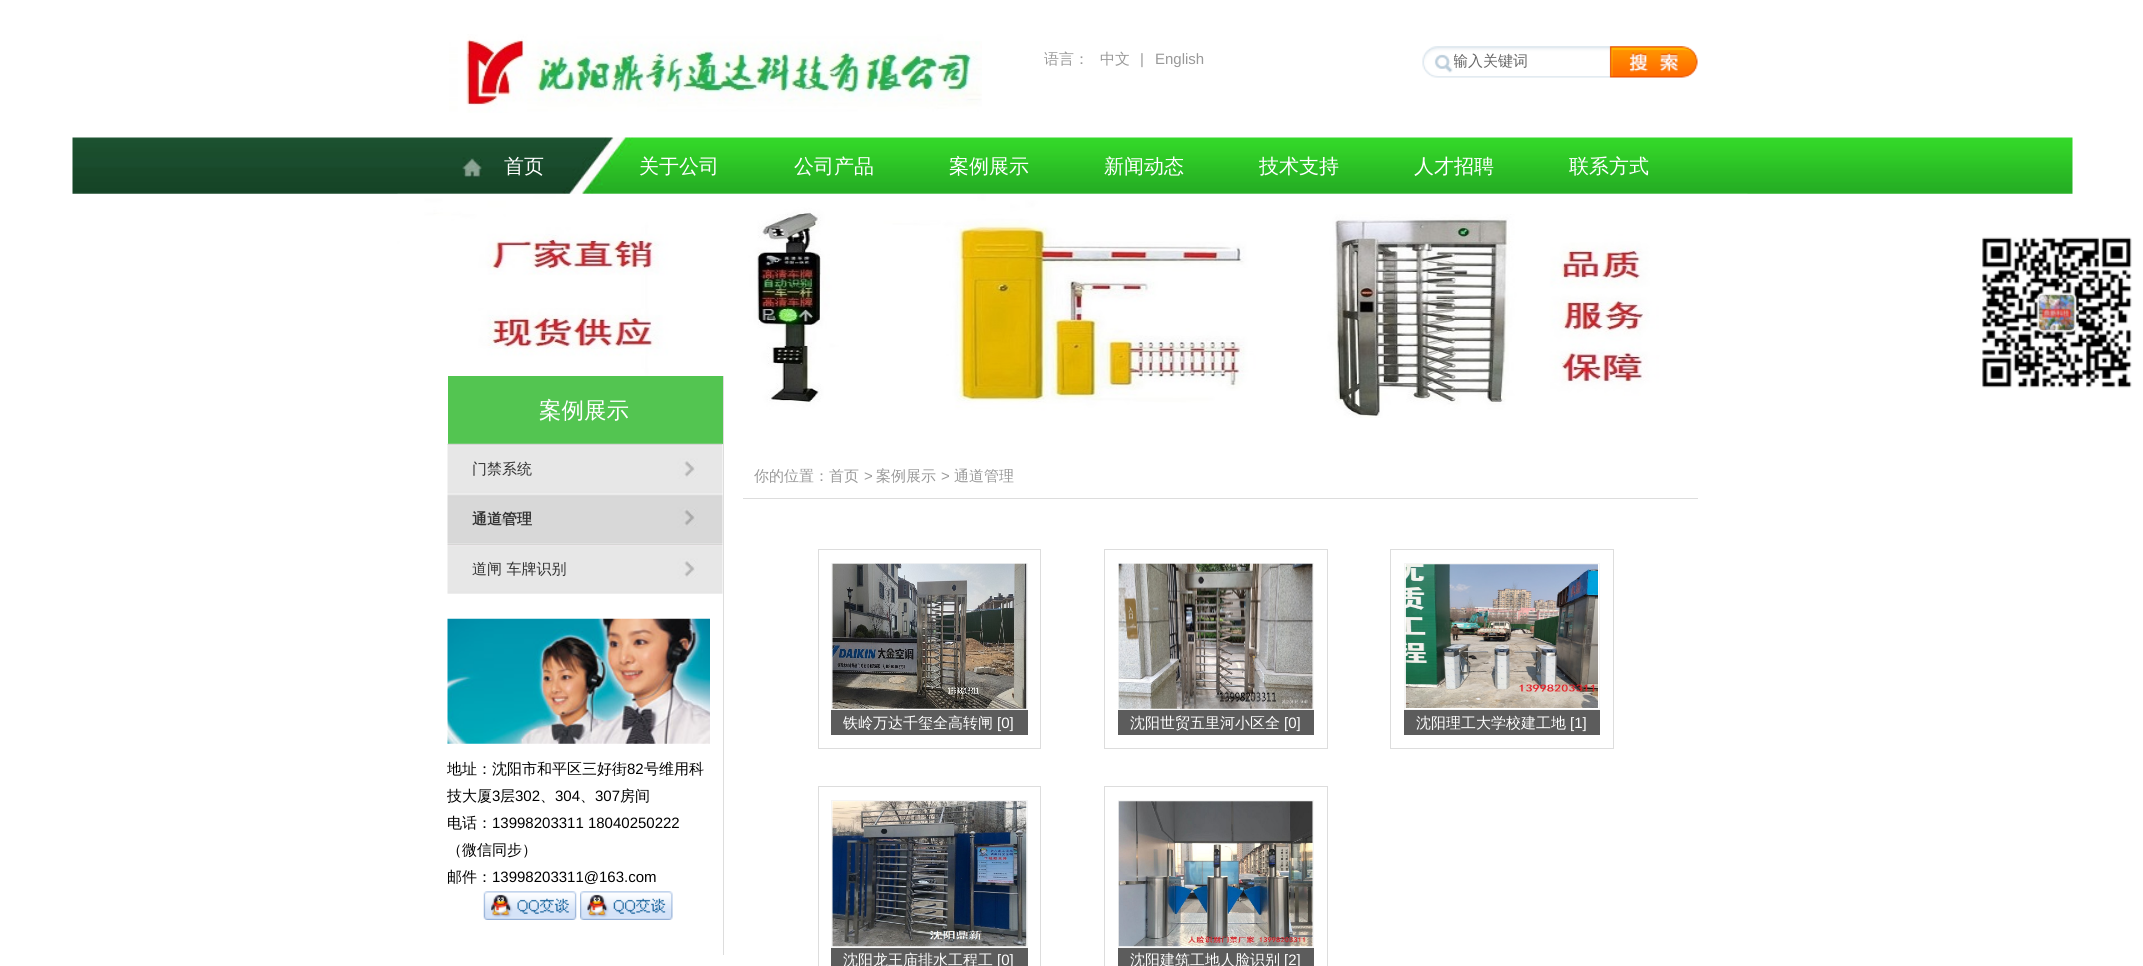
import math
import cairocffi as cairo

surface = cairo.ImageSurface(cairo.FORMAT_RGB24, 2143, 966)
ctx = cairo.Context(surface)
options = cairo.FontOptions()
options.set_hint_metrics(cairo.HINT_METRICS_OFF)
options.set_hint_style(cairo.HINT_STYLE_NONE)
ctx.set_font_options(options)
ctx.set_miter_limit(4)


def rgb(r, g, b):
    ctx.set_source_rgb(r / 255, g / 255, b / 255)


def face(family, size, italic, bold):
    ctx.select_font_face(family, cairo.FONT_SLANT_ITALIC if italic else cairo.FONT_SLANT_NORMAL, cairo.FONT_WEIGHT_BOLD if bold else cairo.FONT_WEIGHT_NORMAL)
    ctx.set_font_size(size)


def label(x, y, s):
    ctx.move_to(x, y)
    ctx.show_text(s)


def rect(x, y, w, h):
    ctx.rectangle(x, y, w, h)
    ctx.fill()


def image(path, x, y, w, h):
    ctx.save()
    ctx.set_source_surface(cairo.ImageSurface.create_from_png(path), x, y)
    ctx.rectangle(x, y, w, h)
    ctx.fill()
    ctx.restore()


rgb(255, 255, 255)
ctx.paint()
image('image0.png', 449, 34, 533, 79)
face('WenQuanYi Zen Hei Medium', 15, 0, 0)
rgb(153, 153, 153)
label(1044, 64, '语言：')
label(1100, 64, '中文')
face('Liberation Sans', 15, 0, 0)
label(1140, 64, '|')
label(1155, 64, 'English')
image('image1.png', 1422, 46, 276, 32)
ctx.save()
ctx.rectangle(1454, 48, 150, 28)
ctx.clip()
face('WenQuanYi Zen Hei Medium', 15, 0, 0)
rgb(102, 102, 102)
label(1453, 66, '输入关键词')
ctx.restore()
image('image2.png', 72, 137, 2001, 57)
face('WenQuanYi Zen Hei Medium', 20, 0, 0)
rgb(255, 255, 255)
label(504, 173, '首页')
label(639, 173, '关于公司')
label(794, 173, '公司产品')
label(949, 173, '案例展示')
label(1104, 173, '新闻动态')
label(1259, 173, '技术支持')
label(1414, 173, '人才招聘')
label(1569, 173, '联系方式')
image('image3.png', 397, 193, 1351, 225)
rgb(221, 221, 221)
rect(723, 376, 1, 579)
rgb(83, 197, 81)
rect(448, 376, 275, 68)
face('WenQuanYi Zen Hei Medium', 22.5, 0, 0)
rgb(255, 255, 255)
label(539, 418, '案例展示')
image('image4.png', 447, 443, 276, 51)
face('WenQuanYi Zen Hei Medium', 15, 0, 0)
rgb(51, 51, 51)
label(472, 474, '门禁系统')
image('image5.png', 447, 494, 276, 50)
face('WenQuanYi Zen Hei', 15, 0, 1)
label(472, 524, '通道管理')
image('image6.png', 447, 544, 276, 50)
face('WenQuanYi Zen Hei Medium', 15, 0, 0)
label(472, 574, '道闸 车牌识别')
image('image7.png', 447, 618, 263, 126)
rgb(0, 0, 0)
label(447, 774, '地址：沈阳市和平区三好街')
face('Liberation Sans', 15, 0, 0)
label(627, 774, '82')
face('WenQuanYi Zen Hei Medium', 15, 0, 0)
label(644, 774, '号维用科')
label(447, 801, '技大厦')
face('Liberation Sans', 15, 0, 0)
label(492, 801, '3')
face('WenQuanYi Zen Hei Medium', 15, 0, 0)
label(500, 801, '层')
face('Liberation Sans', 15, 0, 0)
label(515, 801, '302')
face('WenQuanYi Zen Hei Medium', 15, 0, 0)
label(540, 801, '、')
face('Liberation Sans', 15, 0, 0)
label(555, 801, '304')
face('WenQuanYi Zen Hei Medium', 15, 0, 0)
label(580, 801, '、')
face('Liberation Sans', 15, 0, 0)
label(595, 801, '307')
face('WenQuanYi Zen Hei Medium', 15, 0, 0)
label(620, 801, '房间')
label(447, 828, '电话：')
face('Liberation Sans', 15, 0, 0)
label(492, 828, '13998203311 18040250222')
face('WenQuanYi Zen Hei Medium', 15, 0, 0)
label(447, 855, '（微信同步）')
label(447, 882, '邮件：')
face('Liberation Sans', 15, 0, 0)
label(492, 882, '13998203311@163.com')
image('image8.png', 483, 891, 94, 29)
image('image9.png', 580, 891, 93, 29)
rgb(221, 221, 221)
rect(743, 498, 955, 1)
face('WenQuanYi Zen Hei Medium', 15, 0, 0)
rgb(153, 153, 153)
label(754, 481, '你的位置：首页')
face('Liberation Sans', 15, 0, 0)
label(864, 481, '>')
face('WenQuanYi Zen Hei Medium', 15, 0, 0)
label(876, 481, '案例展示')
face('Liberation Sans', 15, 0, 0)
label(941, 481, '>')
face('WenQuanYi Zen Hei Medium', 15, 0, 0)
label(954, 481, '通道管理')
ctx.rectangle(818.5, 549.5, 222, 199)
rgb(221, 221, 221)
ctx.set_line_width(1)
ctx.stroke()
ctx.rectangle(831.5, 563.5, 196, 146)
rgb(245, 245, 245)
ctx.stroke()
image('image10.png', 832, 563, 195, 146)
rgb(92, 92, 92)
rect(831, 710, 197, 25)
rgb(255, 255, 255)
label(843, 728, '铁岭万达千玺全高转闸')
face('Liberation Sans', 15, 0, 0)
label(997, 728, '[0]')
ctx.rectangle(1104.5, 549.5, 223, 199)
rgb(221, 221, 221)
ctx.stroke()
ctx.rectangle(1118.5, 563.5, 195, 146)
rgb(245, 245, 245)
ctx.stroke()
image('image11.png', 1118, 563, 195, 146)
rgb(92, 92, 92)
rect(1118, 710, 196, 25)
face('WenQuanYi Zen Hei Medium', 15, 0, 0)
rgb(255, 255, 255)
label(1130, 728, '沈阳世贸五里河小区全')
face('Liberation Sans', 15, 0, 0)
label(1284, 728, '[0]')
ctx.rectangle(1390.5, 549.5, 223, 199)
rgb(221, 221, 221)
ctx.stroke()
ctx.rectangle(1404.5, 563.5, 195, 146)
rgb(245, 245, 245)
ctx.stroke()
image('image12.png', 1405, 564, 193, 144)
rgb(92, 92, 92)
rect(1404, 710, 196, 25)
face('WenQuanYi Zen Hei Medium', 15, 0, 0)
rgb(255, 255, 255)
label(1416, 728, '沈阳理工大学校建工地')
face('Liberation Sans', 15, 0, 0)
label(1570, 728, '[1]')
ctx.rectangle(818.5, 786.5, 222, 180)
rgb(221, 221, 221)
ctx.stroke()
ctx.rectangle(831.5, 800.5, 196, 147)
rgb(245, 245, 245)
ctx.stroke()
image('image13.png', 832, 801, 195, 146)
rgb(92, 92, 92)
rect(831, 948, 197, 18)
face('WenQuanYi Zen Hei Medium', 15, 0, 0)
rgb(255, 255, 255)
label(843, 965, '沈阳龙王庙排水工程工')
face('Liberation Sans', 15, 0, 0)
label(997, 965, '[0]')
ctx.rectangle(1104.5, 786.5, 223, 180)
rgb(221, 221, 221)
ctx.stroke()
ctx.rectangle(1118.5, 800.5, 195, 147)
rgb(245, 245, 245)
ctx.stroke()
image('image14.png', 1118, 801, 195, 146)
rgb(92, 92, 92)
rect(1118, 948, 196, 18)
face('WenQuanYi Zen Hei Medium', 15, 0, 0)
rgb(255, 255, 255)
label(1130, 965, '沈阳建筑工地人脸识别')
face('Liberation Sans', 15, 0, 0)
label(1284, 965, '[2]')
image('image15.png', 1982, 237, 150, 151)
surface.write_to_png('render.png')
